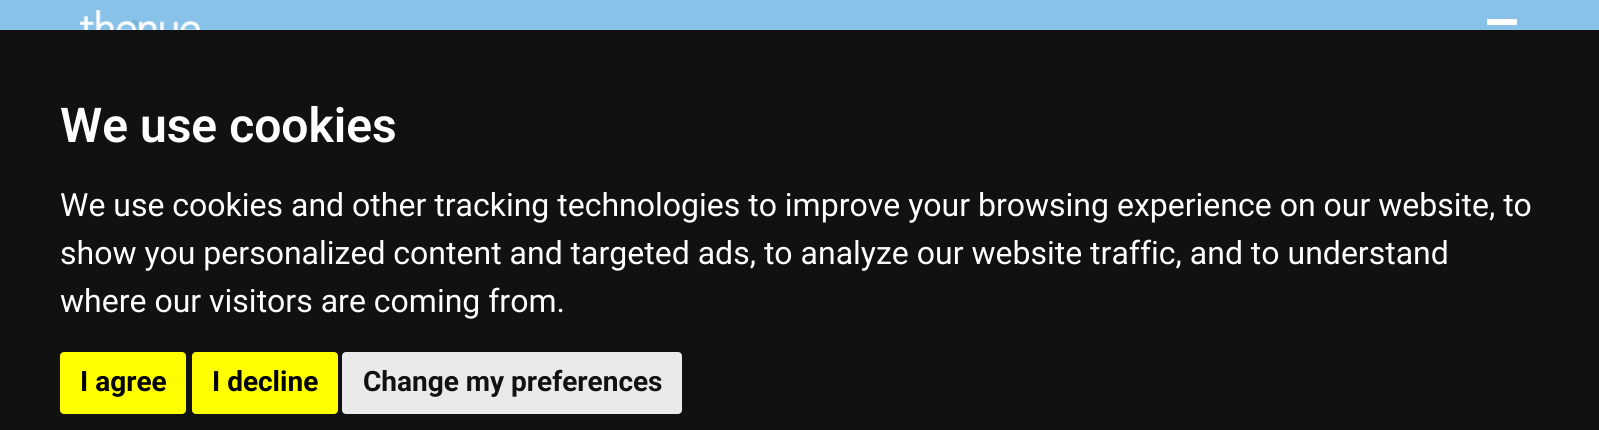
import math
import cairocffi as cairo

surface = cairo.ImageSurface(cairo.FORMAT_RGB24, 1599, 430)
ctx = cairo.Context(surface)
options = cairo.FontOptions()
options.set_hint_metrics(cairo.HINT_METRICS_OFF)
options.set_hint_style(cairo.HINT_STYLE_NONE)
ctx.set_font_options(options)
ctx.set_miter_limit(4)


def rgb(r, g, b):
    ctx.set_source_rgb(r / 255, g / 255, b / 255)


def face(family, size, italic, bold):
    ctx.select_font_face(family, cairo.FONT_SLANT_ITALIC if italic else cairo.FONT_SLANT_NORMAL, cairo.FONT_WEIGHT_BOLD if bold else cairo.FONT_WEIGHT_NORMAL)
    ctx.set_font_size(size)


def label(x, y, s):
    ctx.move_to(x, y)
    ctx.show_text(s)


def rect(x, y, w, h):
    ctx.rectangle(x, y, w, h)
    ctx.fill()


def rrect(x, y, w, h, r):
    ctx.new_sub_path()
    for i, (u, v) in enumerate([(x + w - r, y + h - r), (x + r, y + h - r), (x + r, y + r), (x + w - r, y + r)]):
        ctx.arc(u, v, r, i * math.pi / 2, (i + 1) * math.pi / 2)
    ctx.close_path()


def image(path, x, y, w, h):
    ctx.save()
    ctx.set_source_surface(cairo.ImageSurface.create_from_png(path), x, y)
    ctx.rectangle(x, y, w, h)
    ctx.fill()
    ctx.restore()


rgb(255, 255, 255)
ctx.paint()
rgb(89, 89, 89)
ctx.arc(134, 24, 4, 0, 2 * math.pi)
ctx.fill()
ctx.set_source_rgba(0.49, 0.737, 0.906, 0.9)
rect(0, 0, 1599, 30)
image('image0.png', 80, 10, 120, 20)
image('image1.png', 1487, 19, 30, 6)
rgb(17, 17, 17)
rect(0, 30, 1599, 400)
face('Roboto SemiBold', 48, 0, 0)
rgb(255, 255, 255)
label(60, 142, 'We use cookies')
face('Roboto', 32, 0, 0)
label(60, 216, 'We use cookies and other tracking technologies to improve your browsing experience on our website, to')
label(60, 264, 'show you personalized content and targeted ads, to analyze our website traffic, and to understand')
label(60, 312, 'where our visitors are coming from.')
rgb(255, 255, 0)
rrect(60, 352, 126, 62, 4)
ctx.fill()
face('Roboto', 28, 0, 1)
rgb(0, 0, 0)
label(80, 391, 'I agree')
rgb(255, 255, 0)
rrect(192, 352, 146, 62, 4)
ctx.fill()
rgb(0, 0, 0)
label(212, 391, 'I decline')
rgb(234, 234, 234)
rrect(342, 352, 340, 62, 4)
ctx.fill()
rgb(17, 17, 17)
label(363, 391, 'Change my preferences')
surface.write_to_png('render.png')
